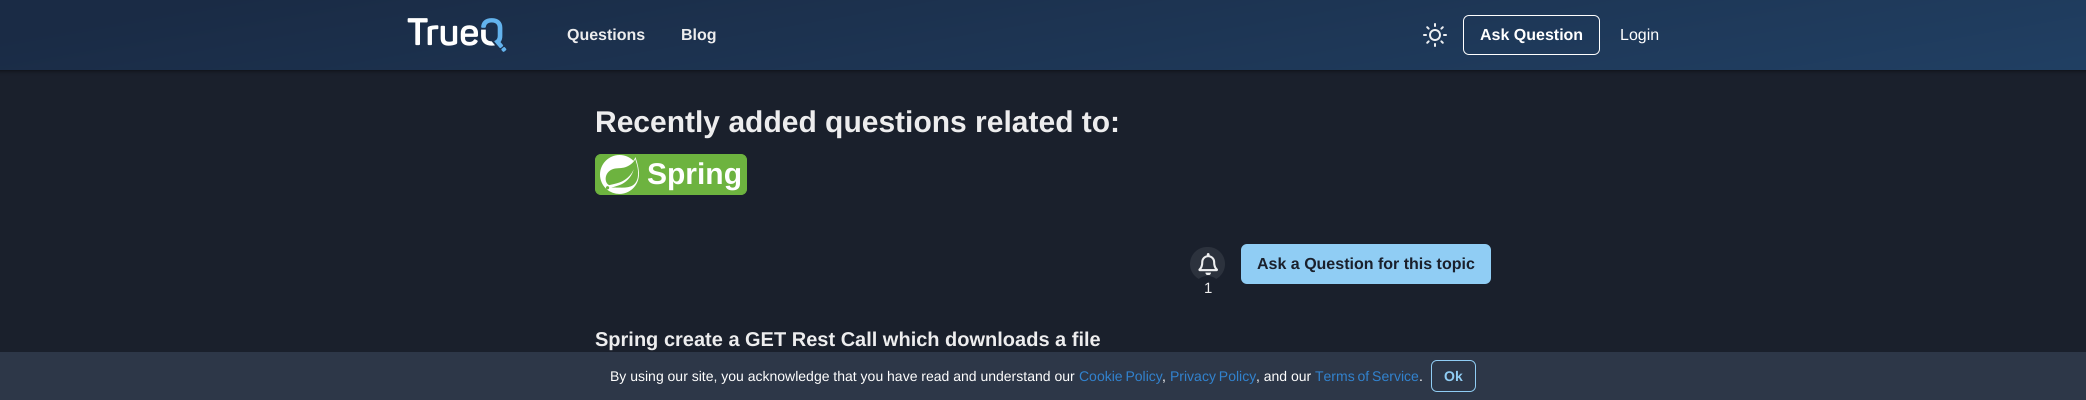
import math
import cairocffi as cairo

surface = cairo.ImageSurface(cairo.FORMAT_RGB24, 2086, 400)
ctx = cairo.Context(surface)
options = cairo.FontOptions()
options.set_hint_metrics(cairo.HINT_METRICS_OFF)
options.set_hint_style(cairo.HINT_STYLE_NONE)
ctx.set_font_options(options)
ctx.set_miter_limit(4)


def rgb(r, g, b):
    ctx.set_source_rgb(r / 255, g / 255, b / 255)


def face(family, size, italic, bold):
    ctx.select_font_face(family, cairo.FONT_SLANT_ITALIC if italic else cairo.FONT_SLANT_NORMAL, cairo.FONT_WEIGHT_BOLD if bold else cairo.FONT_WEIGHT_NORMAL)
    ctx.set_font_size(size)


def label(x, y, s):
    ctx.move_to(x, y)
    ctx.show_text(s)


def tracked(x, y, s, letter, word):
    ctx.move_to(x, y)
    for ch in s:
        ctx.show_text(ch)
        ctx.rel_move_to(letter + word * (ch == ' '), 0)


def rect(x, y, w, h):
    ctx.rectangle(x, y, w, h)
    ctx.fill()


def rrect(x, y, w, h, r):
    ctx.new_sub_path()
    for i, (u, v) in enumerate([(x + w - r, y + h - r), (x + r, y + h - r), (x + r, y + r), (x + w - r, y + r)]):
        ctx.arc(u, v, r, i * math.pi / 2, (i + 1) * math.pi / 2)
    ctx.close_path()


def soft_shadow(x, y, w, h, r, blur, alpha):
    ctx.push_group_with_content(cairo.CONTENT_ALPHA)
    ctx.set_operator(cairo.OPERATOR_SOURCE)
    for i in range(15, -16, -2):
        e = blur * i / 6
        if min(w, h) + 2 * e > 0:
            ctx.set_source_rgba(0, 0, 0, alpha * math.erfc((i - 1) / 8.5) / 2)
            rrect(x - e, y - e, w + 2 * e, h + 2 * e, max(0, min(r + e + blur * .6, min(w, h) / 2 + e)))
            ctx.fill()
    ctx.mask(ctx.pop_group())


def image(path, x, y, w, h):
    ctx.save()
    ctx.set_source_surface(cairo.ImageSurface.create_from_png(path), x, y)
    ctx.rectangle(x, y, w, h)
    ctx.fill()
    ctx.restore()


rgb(26, 32, 44)
ctx.paint()
rgb(0, 0, 0)
soft_shadow(-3, -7, 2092, 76, 0, 3, 1)
gradient = cairo.LinearGradient(1006, -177, 1140, 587)
gradient.add_color_stop_rgba(0.05, 0.102, 0.169, 0.271, 1)
gradient.add_color_stop_rgba(1, 0.149, 0.318, 0.49, 1)
ctx.set_source(gradient)
rect(0, 0, 2086, 70)
image('image0.png', 407, 18, 100, 34)
face('Liberation Sans', 16, 0, 1)
rgb(237, 237, 238)
label(567, 40, 'Questions')
label(681, 40, 'Blog')
image('image1.png', 1423, 23, 24, 24)
rrect(1463.5, 15.5, 136, 39, 5.5)
rgb(255, 255, 255)
ctx.set_line_width(1)
ctx.stroke()
label(1480, 40, 'Ask Question')
face('Liberation Sans', 16, 0, 0)
label(1620, 40, 'Login')
face('Liberation Sans', 30, 0, 1)
rgb(237, 237, 238)
label(595, 132, 'Recently added questions related to:')
rgb(109, 179, 63)
rrect(595.5, 154.5, 151, 40, 5.5)
ctx.fill_preserve()
ctx.stroke()
image('image2.png', 600, 155, 39, 39)
rgb(255, 255, 255)
label(647, 184, 'Spring')
rgb(144, 205, 244)
rrect(1241, 244, 250, 40, 6)
ctx.fill()
face('Liberation Sans', 16, 0, 1)
rgb(26, 32, 44)
label(1257, 269, 'Ask a Question for this topic')
rgb(44, 50, 61)
rrect(1190, 247, 35, 34, 17)
ctx.fill()
image('image3.png', 1198, 253, 20, 22)
rgb(26, 32, 44)
rrect(1194, 276, 27, 26, 13)
ctx.fill()
face('Liberation Sans', 15, 0, 0)
rgb(237, 237, 238)
label(1204, 293, '1')
face('Liberation Sans', 20, 0, 1)
label(595, 346, 'Spring create a GET Rest Call which downloads a file')
rgb(45, 55, 72)
rect(0, 352, 2086, 48)
face('Liberation Sans', 14, 0, 0)
rgb(255, 255, 255)
label(610, 381, 'By using our site, you acknowledge that you have read and understand our')
rgb(49, 130, 206)
tracked(1079, 381, 'Cookie Policy', 0, -1)
rgb(255, 255, 255)
label(1162, 381, ',')
rgb(49, 130, 206)
tracked(1170, 381, 'Privacy Policy', 0, -1)
rgb(255, 255, 255)
label(1256, 381, ', and our')
rgb(49, 130, 206)
tracked(1315, 381, 'Terms of Service', 0, -1)
rgb(255, 255, 255)
label(1419, 381, '.')
rrect(1431.5, 360.5, 44, 31, 5.5)
rgb(144, 205, 244)
ctx.stroke()
face('Liberation Sans', 14, 0, 1)
label(1444, 381, 'Ok')
surface.write_to_png('render.png')
